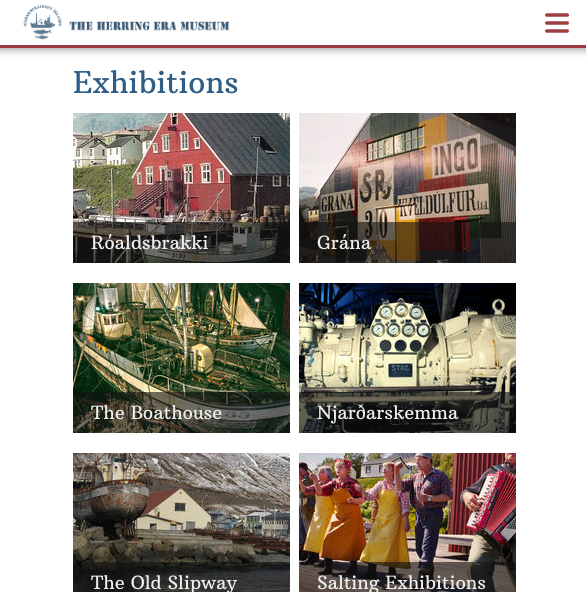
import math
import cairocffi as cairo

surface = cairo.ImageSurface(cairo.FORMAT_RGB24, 586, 592)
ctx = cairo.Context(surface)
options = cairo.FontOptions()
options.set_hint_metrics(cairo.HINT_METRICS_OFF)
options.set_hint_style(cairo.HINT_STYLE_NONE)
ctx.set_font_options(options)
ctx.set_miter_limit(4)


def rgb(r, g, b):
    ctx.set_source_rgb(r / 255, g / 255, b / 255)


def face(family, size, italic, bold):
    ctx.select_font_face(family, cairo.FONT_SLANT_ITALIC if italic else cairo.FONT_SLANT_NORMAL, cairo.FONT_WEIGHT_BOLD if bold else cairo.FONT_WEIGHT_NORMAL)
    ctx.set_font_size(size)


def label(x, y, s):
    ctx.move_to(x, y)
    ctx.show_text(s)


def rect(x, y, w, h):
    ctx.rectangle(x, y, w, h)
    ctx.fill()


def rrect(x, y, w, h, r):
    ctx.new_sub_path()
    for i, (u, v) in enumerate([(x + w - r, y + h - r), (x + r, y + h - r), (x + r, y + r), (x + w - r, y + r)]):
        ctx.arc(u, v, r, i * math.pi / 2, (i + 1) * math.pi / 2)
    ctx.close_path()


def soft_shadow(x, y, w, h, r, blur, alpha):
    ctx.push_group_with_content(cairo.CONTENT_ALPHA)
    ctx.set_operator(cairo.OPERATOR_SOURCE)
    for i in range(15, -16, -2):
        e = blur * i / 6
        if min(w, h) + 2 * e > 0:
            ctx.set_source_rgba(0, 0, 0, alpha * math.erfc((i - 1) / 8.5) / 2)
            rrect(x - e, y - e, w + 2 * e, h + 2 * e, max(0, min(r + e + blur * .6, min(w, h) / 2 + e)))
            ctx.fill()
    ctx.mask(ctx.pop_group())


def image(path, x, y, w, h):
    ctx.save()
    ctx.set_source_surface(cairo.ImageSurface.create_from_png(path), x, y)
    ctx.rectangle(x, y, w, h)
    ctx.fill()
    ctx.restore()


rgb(255, 255, 255)
ctx.paint()
rgb(0, 0, 0)
soft_shadow(-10, -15, 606, 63, 0, 5, 0.5)
rgb(158, 61, 64)
rect(0, 45, 586, 3)
rgb(255, 255, 255)
rect(0, 0, 586, 45)
image('image0.png', 23, 5, 206, 35)
image('image1.png', 545, 13, 24, 20)
face('Arbutus Slab', 30, 0, 0)
rgb(46, 94, 133)
label(73, 93, 'Exhibitions')
image('image2.png', 73, 113, 217, 150)
ctx.set_source_rgba(0.067, 0.067, 0.067, 0.6)
rect(73, 222, 217, 41)
face('Arbutus Slab', 18.25, 0, 0)
rgb(238, 238, 238)
label(91, 249, 'Róaldsbrakki')
image('image3.png', 299, 113, 217, 150)
ctx.set_source_rgba(0.067, 0.067, 0.067, 0.6)
rect(299, 222, 217, 41)
rgb(238, 238, 238)
label(317, 249, 'Grána')
image('image4.png', 73, 283, 217, 150)
ctx.set_source_rgba(0.067, 0.067, 0.067, 0.6)
rect(73, 392, 217, 41)
rgb(238, 238, 238)
label(91, 419, 'The Boathouse')
image('image5.png', 299, 283, 217, 150)
ctx.set_source_rgba(0.067, 0.067, 0.067, 0.6)
rect(299, 392, 217, 41)
rgb(238, 238, 238)
label(317, 419, 'Njarðarskemma')
image('image6.png', 73, 453, 217, 139)
ctx.set_source_rgba(0.067, 0.067, 0.067, 0.6)
rect(73, 562, 217, 30)
rgb(238, 238, 238)
label(91, 589, 'The Old Slipway')
image('image7.png', 299, 453, 217, 139)
ctx.set_source_rgba(0.067, 0.067, 0.067, 0.6)
rect(299, 562, 217, 30)
rgb(238, 238, 238)
label(317, 589, 'Salting Exhibitions')
surface.write_to_png('render.png')
